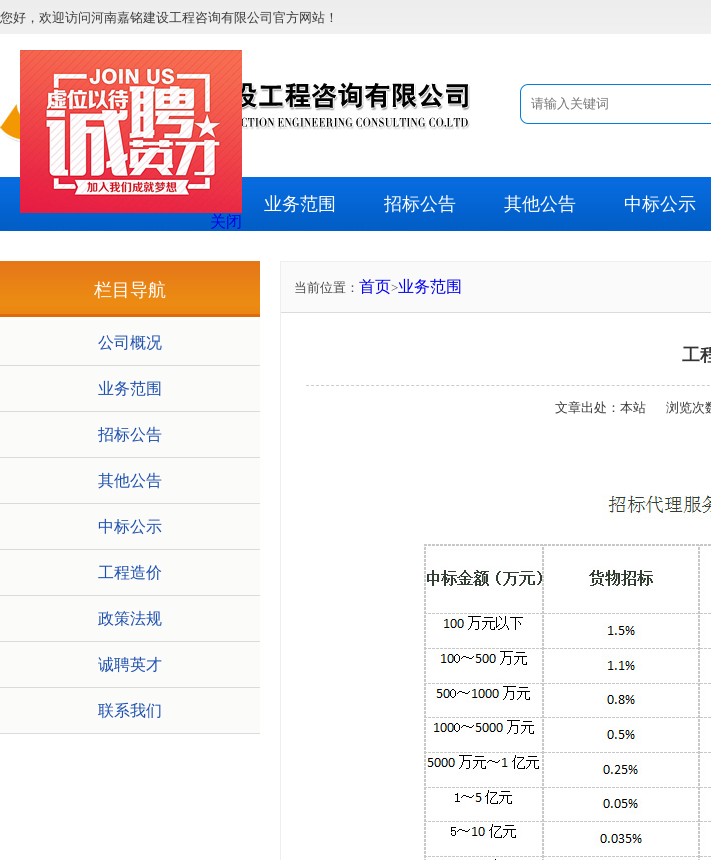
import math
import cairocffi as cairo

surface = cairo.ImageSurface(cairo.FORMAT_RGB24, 711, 860)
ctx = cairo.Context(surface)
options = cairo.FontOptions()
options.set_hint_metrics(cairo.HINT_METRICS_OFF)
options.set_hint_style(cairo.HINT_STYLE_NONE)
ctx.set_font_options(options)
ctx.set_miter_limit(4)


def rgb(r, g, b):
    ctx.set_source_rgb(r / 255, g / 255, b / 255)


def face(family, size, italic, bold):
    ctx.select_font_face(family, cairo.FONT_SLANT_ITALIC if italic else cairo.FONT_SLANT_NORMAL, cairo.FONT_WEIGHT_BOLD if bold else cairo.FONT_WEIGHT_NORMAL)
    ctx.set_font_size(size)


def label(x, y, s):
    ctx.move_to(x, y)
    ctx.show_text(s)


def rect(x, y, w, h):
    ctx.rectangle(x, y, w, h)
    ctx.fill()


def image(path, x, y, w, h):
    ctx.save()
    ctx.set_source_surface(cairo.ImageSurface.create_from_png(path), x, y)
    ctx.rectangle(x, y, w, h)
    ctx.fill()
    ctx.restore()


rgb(255, 255, 255)
ctx.paint()
image('image0.png', 0, 0, 711, 231)
face('WenQuanYi Zen Hei Medium', 13, 0, 0)
rgb(59, 59, 59)
label(0, 22, '您好，欢迎访问河南嘉铭建设工程咨询有限公司官方网站！')
image('image1.png', 0, 66, 471, 80)
ctx.new_path()
ctx.move_to(528, 84.5)
ctx.line_to(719.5, 84.5)
ctx.line_to(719.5, 123.5)
ctx.line_to(528, 123.5)
ctx.curve_to(524, 123.5, 520.5, 120, 520.5, 116)
ctx.line_to(520.5, 92)
ctx.curve_to(520.5, 88, 524, 84.5, 528, 84.5)
ctx.close_path()
rgb(0, 126, 221)
ctx.set_line_width(1)
ctx.stroke()
rgb(117, 117, 117)
label(531, 108, '请输入关键词')
face('WenQuanYi Zen Hei Medium', 18, 0, 0)
rgb(255, 255, 255)
label(264, 210, '业务范围')
label(384, 210, '招标公告')
label(504, 210, '其他公告')
label(624, 210, '中标公示')
image('image2.png', 20, 50, 222, 163)
face('WenQuanYi Zen Hei Medium', 16, 0, 0)
rgb(0, 0, 238)
label(210, 227, '关闭')
image('image3.png', 0, 261, 260, 58)
face('WenQuanYi Zen Hei Medium', 18, 0, 0)
rgb(255, 255, 255)
label(94, 296, '栏目导航')
rgb(251, 251, 249)
rect(0, 320, 260, 45)
rgb(219, 219, 219)
rect(0, 365, 260, 1)
face('WenQuanYi Zen Hei Medium', 16, 0, 0)
rgb(30, 80, 175)
label(98, 348, '公司概况')
rgb(251, 251, 249)
rect(0, 366, 260, 45)
rgb(219, 219, 219)
rect(0, 411, 260, 1)
rgb(30, 80, 175)
label(98, 394, '业务范围')
rgb(251, 251, 249)
rect(0, 412, 260, 45)
rgb(219, 219, 219)
rect(0, 457, 260, 1)
rgb(30, 80, 175)
label(98, 440, '招标公告')
rgb(251, 251, 249)
rect(0, 458, 260, 45)
rgb(219, 219, 219)
rect(0, 503, 260, 1)
rgb(30, 80, 175)
label(98, 486, '其他公告')
rgb(251, 251, 249)
rect(0, 504, 260, 45)
rgb(219, 219, 219)
rect(0, 549, 260, 1)
rgb(30, 80, 175)
label(98, 532, '中标公示')
rgb(251, 251, 249)
rect(0, 550, 260, 45)
rgb(219, 219, 219)
rect(0, 595, 260, 1)
rgb(30, 80, 175)
label(98, 578, '工程造价')
rgb(251, 251, 249)
rect(0, 596, 260, 45)
rgb(219, 219, 219)
rect(0, 641, 260, 1)
rgb(30, 80, 175)
label(98, 624, '政策法规')
rgb(251, 251, 249)
rect(0, 642, 260, 45)
rgb(219, 219, 219)
rect(0, 687, 260, 1)
rgb(30, 80, 175)
label(98, 670, '诚聘英才')
rgb(251, 251, 249)
rect(0, 688, 260, 45)
rgb(219, 219, 219)
rect(0, 733, 260, 1)
rgb(30, 80, 175)
label(98, 716, '联系我们')
ctx.rectangle(280.5, 261.5, 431, 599)
rgb(238, 238, 238)
ctx.stroke()
rgb(250, 250, 250)
rect(281, 262, 430, 50)
rgb(219, 219, 219)
rect(281, 312, 430, 1)
face('WenQuanYi Zen Hei Medium', 13, 0, 0)
rgb(75, 75, 75)
label(294, 292, '当前位置：')
face('WenQuanYi Zen Hei Medium', 16, 0, 0)
rgb(0, 0, 238)
label(359, 292, '首页')
face('Liberation Serif', 13, 0, 0)
rgb(75, 75, 75)
label(391, 292, '>')
face('WenQuanYi Zen Hei Medium', 16, 0, 0)
rgb(0, 0, 238)
label(398, 292, '业务范围')
ctx.new_path()
ctx.move_to(306, 385.5)
ctx.line_to(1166, 385.5)
rgb(204, 204, 204)
ctx.set_dash([3, 2.01])
ctx.stroke()
face('WenQuanYi Zen Hei', 18, 0, 1)
rgb(51, 51, 51)
label(682, 361, '工程')
face('WenQuanYi Zen Hei Medium', 13, 0, 0)
rgb(59, 59, 59)
label(555, 412, '文章出处：本站')
label(666, 412, '浏览次数')
image('image4.png', 420, 495, 291, 365)
surface.write_to_png('render.png')
